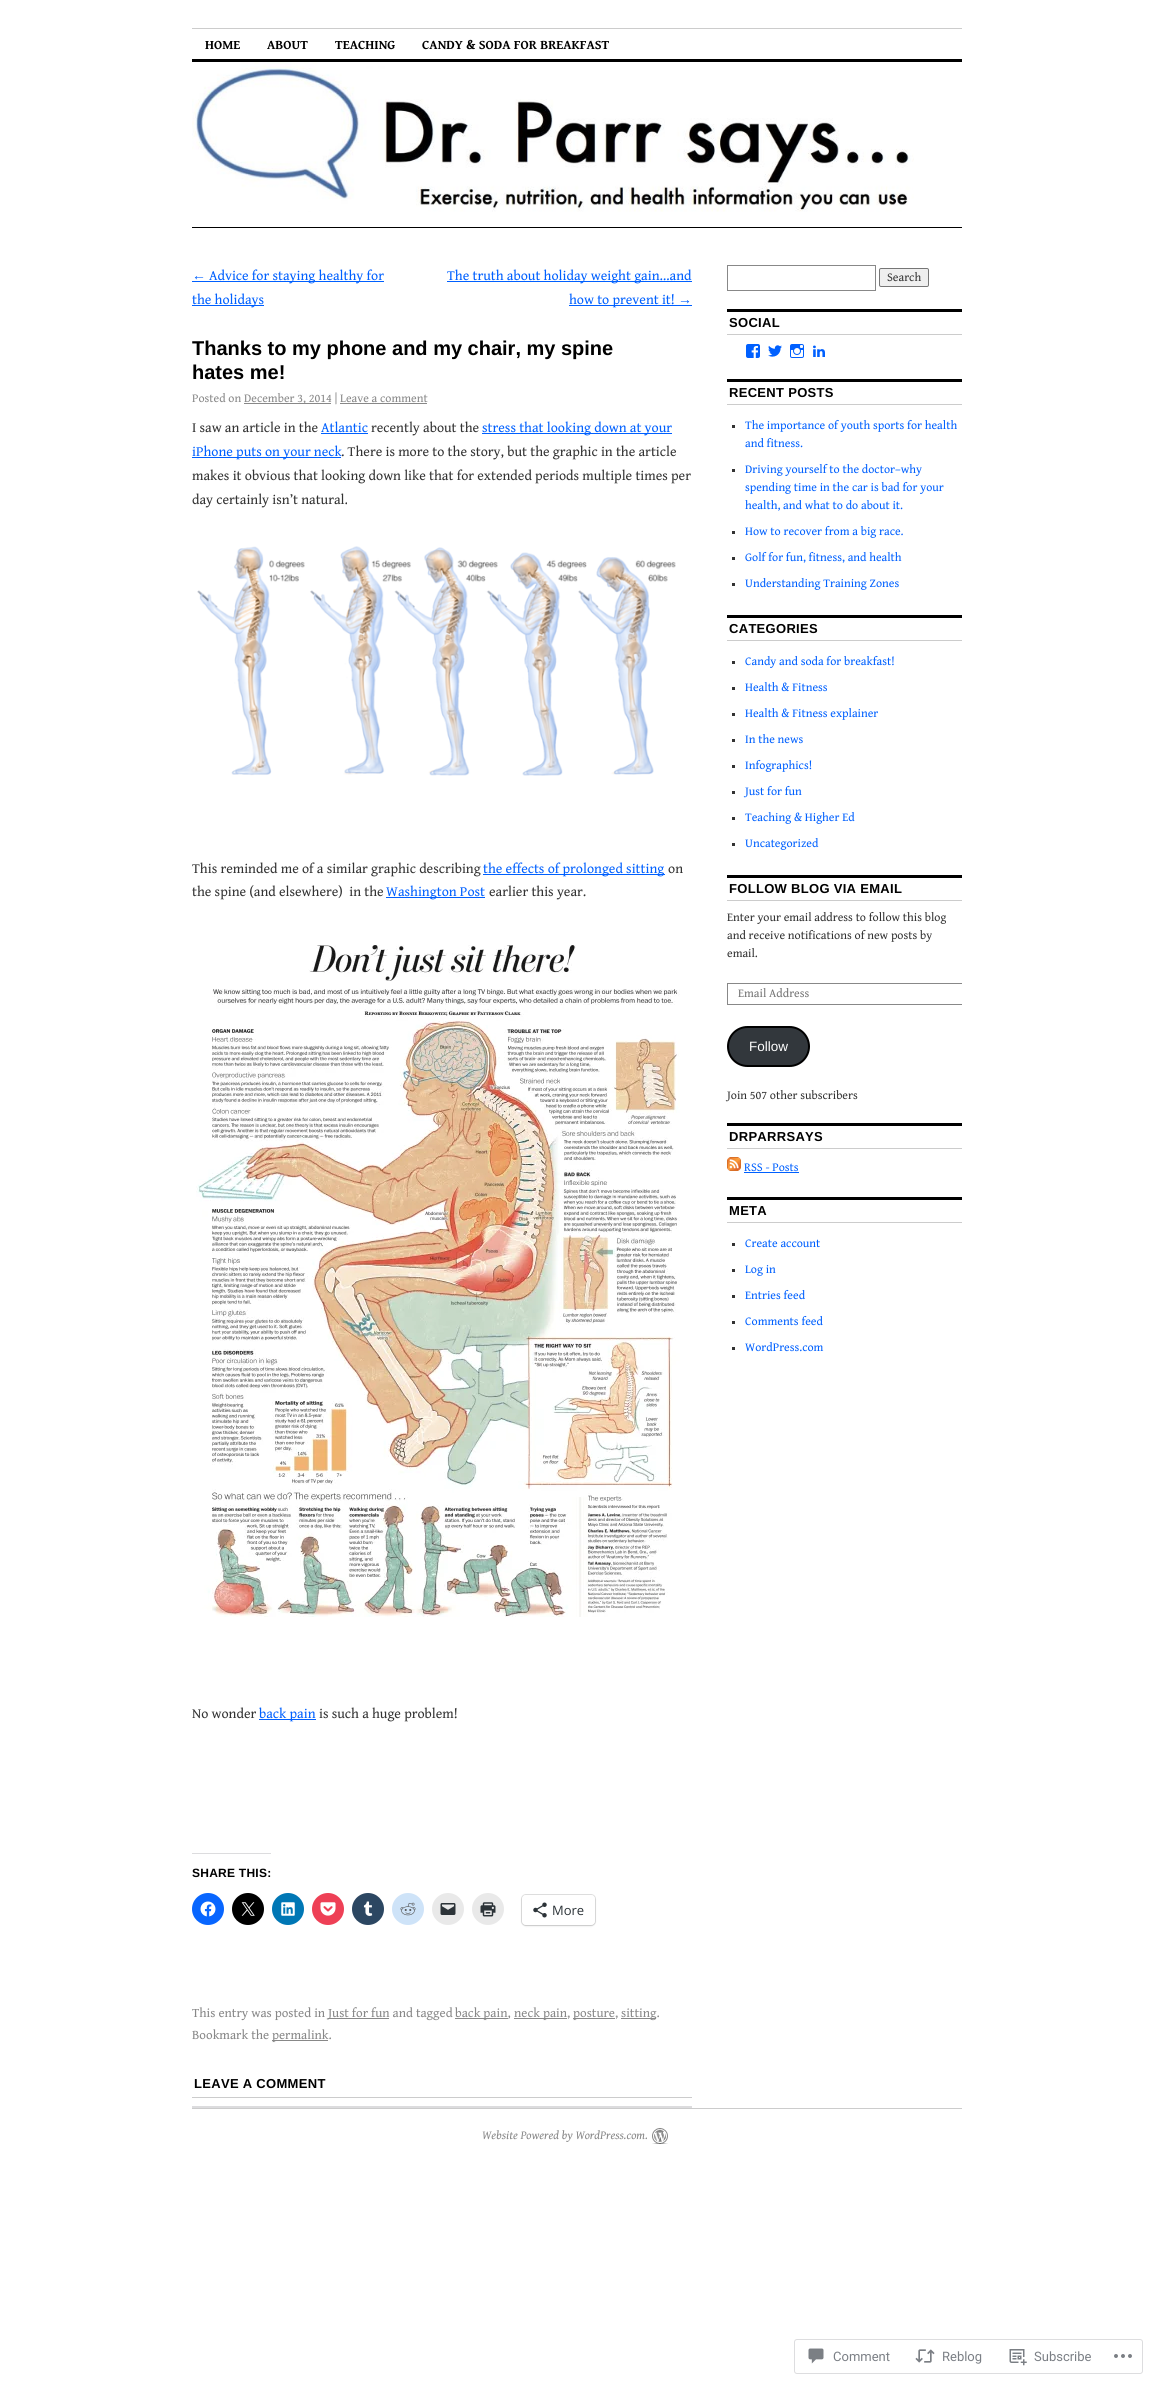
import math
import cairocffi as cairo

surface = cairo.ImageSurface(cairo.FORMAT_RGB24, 1153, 2384)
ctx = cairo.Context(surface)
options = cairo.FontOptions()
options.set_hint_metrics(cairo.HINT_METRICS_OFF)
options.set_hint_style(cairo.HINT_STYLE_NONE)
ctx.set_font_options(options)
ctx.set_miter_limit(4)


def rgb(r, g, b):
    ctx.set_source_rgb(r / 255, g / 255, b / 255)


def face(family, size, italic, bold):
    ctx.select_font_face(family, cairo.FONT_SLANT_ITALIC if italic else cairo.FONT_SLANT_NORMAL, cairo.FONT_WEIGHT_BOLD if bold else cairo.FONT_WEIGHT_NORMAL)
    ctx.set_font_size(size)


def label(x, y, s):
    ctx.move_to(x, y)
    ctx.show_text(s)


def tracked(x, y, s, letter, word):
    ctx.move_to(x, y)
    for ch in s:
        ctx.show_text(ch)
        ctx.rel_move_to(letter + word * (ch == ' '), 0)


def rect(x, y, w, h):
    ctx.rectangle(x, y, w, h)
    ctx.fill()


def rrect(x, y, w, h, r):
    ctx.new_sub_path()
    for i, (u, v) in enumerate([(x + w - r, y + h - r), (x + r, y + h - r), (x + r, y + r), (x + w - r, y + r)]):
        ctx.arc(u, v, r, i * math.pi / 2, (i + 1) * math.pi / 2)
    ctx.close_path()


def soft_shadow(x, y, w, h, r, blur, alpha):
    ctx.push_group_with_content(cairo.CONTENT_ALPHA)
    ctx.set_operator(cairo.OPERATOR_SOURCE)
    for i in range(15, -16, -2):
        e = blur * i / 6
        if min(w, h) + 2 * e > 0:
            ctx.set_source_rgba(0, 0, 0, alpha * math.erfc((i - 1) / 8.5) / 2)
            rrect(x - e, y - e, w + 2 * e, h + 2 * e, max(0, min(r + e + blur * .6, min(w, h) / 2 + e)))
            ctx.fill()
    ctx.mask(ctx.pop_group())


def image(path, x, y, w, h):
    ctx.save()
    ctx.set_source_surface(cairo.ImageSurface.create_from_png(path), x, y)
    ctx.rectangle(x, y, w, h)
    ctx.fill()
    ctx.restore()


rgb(255, 255, 255)
ctx.paint()
rgb(204, 204, 204)
rect(192, 28, 770, 1)
face('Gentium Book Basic', 13, 0, 1)
rgb(0, 0, 0)
label(205, 49, 'HOME')
label(267, 49, 'ABOUT')
label(335, 49, 'TEACHING')
label(422, 49, 'CANDY & SODA FOR BREAKFAST')
rect(192, 59, 770, 3)
image('image0.png', 192, 62, 722, 150)
rect(192, 227, 770, 1)
face('Liberation Serif', 14, 0, 0)
rgb(0, 96, 255)
label(192, 280, '←')
rect(192, 281, 192, 1)
face('Gentium Book Basic', 14, 0, 0)
label(209, 280, 'Advice for staying healthy for')
rect(192, 305, 72, 1)
label(192, 304, 'the holidays')
rect(447, 281, 245, 1)
label(447, 280, 'The truth about holiday weight gain…and')
rect(569, 305, 123, 1)
label(569, 304, 'how to prevent it!')
face('Liberation Serif', 14, 0, 0)
label(678, 304, '→')
face('Liberation Sans', 20, 0, 1)
rgb(0, 0, 0)
label(192, 355, 'Thanks to my phone and my chair, my spine')
label(192, 379, 'hates me!')
face('Gentium Book Basic', 12, 0, 0)
rgb(136, 136, 136)
label(192, 402, 'Posted on')
rect(244, 403, 87, 1)
label(244, 402, 'December 3, 2014 | Leave a comment')
rect(340, 403, 87, 1)
face('Gentium Book Basic', 14, 0, 0)
rgb(51, 51, 51)
label(192, 432, 'I saw an article in the')
rgb(0, 96, 255)
label(321, 432, 'Atlantic')
rect(321, 433, 47, 1)
rgb(51, 51, 51)
label(371, 432, 'recently about the')
rgb(0, 96, 255)
rect(482, 433, 190, 1)
label(482, 432, 'stress that looking down at your')
rect(192, 457, 149, 1)
label(192, 456, 'iPhone puts on your neck')
rgb(51, 51, 51)
label(341, 456, '. There is more to the story, but the graphic in the article')
label(192, 480, 'makes it obvious that looking down like that for extended periods multiple times per')
label(192, 504, 'day certainly isn’t natural.')
image('image1.png', 197, 546, 479, 230)
label(192, 873, 'This reminded me of a similar graphic describing')
rgb(0, 96, 255)
rect(483, 874, 182, 1)
label(483, 873, 'the effects of prolonged sitting')
rgb(51, 51, 51)
label(668, 873, 'on')
label(192, 896, 'the spine (and elsewhere)  in the')
rgb(0, 96, 255)
rect(386, 897, 99, 1)
label(386, 896, 'Washington Post')
rgb(51, 51, 51)
label(489, 896, 'earlier this year.')
image('image2.png', 196, 945, 484, 672)
label(192, 1718, 'No wonder')
rgb(0, 96, 255)
rect(259, 1719, 57, 1)
label(259, 1718, 'back pain')
rgb(51, 51, 51)
label(319, 1718, 'is such a huge problem!')
rgb(220, 220, 222)
rect(192, 1853, 79, 1)
face('Liberation Sans', 12, 0, 1)
rgb(0, 0, 0)
tracked(192, 1877, 'SHARE THIS:', 0.25, 0)
rgb(8, 102, 255)
ctx.new_path()
ctx.arc(208, 1909, 16, 0, 2 * math.pi)
ctx.fill()
image('image3.png', 200, 1901, 16, 16)
rgb(0, 0, 0)
ctx.arc(248, 1909, 16, 0, 2 * math.pi)
ctx.fill()
image('image4.png', 241, 1902, 14, 14)
rgb(0, 119, 181)
ctx.arc(288, 1909, 16, 0, 2 * math.pi)
ctx.fill()
image('image5.png', 281, 1902, 14, 14)
rgb(238, 64, 86)
ctx.arc(328, 1909, 16, 0, 2 * math.pi)
ctx.fill()
image('image6.png', 320, 1902, 16, 14)
rgb(44, 71, 98)
ctx.arc(368, 1909, 16, 0, 2 * math.pi)
ctx.fill()
image('image7.png', 363, 1901, 10, 15)
rgb(206, 227, 248)
ctx.arc(408, 1909, 16, 0, 2 * math.pi)
ctx.fill()
image('image8.png', 400, 1902, 16, 14)
rgb(233, 233, 233)
ctx.arc(448, 1909, 16, 0, 2 * math.pi)
ctx.fill()
image('image9.png', 440, 1903, 16, 12)
ctx.arc(488, 1909, 16, 0, 2 * math.pi)
ctx.fill()
image('image10.png', 480, 1902, 16, 15)
rrect(521.5, 1894.5, 74, 31, 4.5)
rgb(224, 224, 224)
ctx.set_line_width(1)
ctx.stroke()
rgb(0, 0, 0)
soft_shadow(522, 1896, 73, 30, 4, 1, 0.12)
rgb(255, 255, 255)
rrect(522, 1895, 73, 30, 4)
ctx.fill()
image('image11.png', 533, 1902, 14, 16)
face('Open Sans', 13, 0, 0)
rgb(44, 51, 56)
label(552, 1915, 'More')
face('Gentium Book Basic', 13, 0, 0)
rgb(136, 136, 136)
label(192, 2017, 'This entry was posted in')
rect(328, 2018, 61, 1)
label(328, 2017, 'Just for fun and tagged')
rect(455, 2018, 53, 1)
label(455, 2017, 'back pain,')
rect(514, 2018, 53, 1)
label(514, 2017, 'neck pain,')
rect(573, 2018, 42, 1)
label(573, 2017, 'posture,')
rect(621, 2018, 35, 1)
label(621, 2017, 'sitting.')
label(192, 2039, 'Bookmark the')
rect(272, 2040, 56, 1)
label(272, 2039, 'permalink.')
rgb(204, 204, 204)
rect(192, 2097, 500, 1)
face('Liberation Sans', 13, 0, 1)
rgb(0, 0, 0)
tracked(194, 2088, 'LEAVE A COMMENT', 0.3, 0)
rgb(220, 220, 222)
rect(192, 2106, 500, 2)
ctx.rectangle(727.5, 265.5, 148, 25)
rgb(136, 136, 136)
ctx.stroke()
rgb(239, 239, 239)
rrect(879.5, 268.5, 49, 18, 1.5)
ctx.fill_preserve()
rgb(118, 118, 118)
ctx.stroke()
face('Gentium Book Basic', 12, 0, 0)
rgb(51, 51, 51)
label(887, 281, 'Search')
rgb(0, 0, 0)
rect(727, 309, 235, 3)
rgb(204, 204, 204)
rect(727, 334, 235, 1)
face('Liberation Sans', 13, 0, 1)
rgb(0, 0, 0)
tracked(729, 327, 'SOCIAL', 0.3, 0)
image('image12.png', 746, 344, 14, 14)
image('image13.png', 768, 345, 14, 12)
image('image14.png', 790, 344, 14, 14)
image('image15.png', 813, 345, 12, 12)
rect(727, 379, 235, 3)
rgb(204, 204, 204)
rect(727, 404, 235, 1)
rgb(0, 0, 0)
tracked(729, 397, 'RECENT POSTS', 0.3, 0)
rgb(51, 51, 51)
rect(732, 425, 3, 3)
face('Gentium Book Basic', 12, 0, 0)
rgb(0, 96, 255)
label(745, 429, 'The importance of youth sports for health')
label(745, 447, 'and fitness.')
rgb(51, 51, 51)
rect(732, 469, 3, 3)
rgb(0, 96, 255)
label(745, 473, 'Driving yourself to the doctor–why')
label(745, 491, 'spending time in the car is bad for your')
label(745, 509, 'health, and what to do about it.')
rgb(51, 51, 51)
rect(732, 531, 3, 3)
rgb(0, 96, 255)
label(745, 535, 'How to recover from a big race.')
rgb(51, 51, 51)
rect(732, 557, 3, 3)
rgb(0, 96, 255)
label(745, 561, 'Golf for fun, fitness, and health')
rgb(51, 51, 51)
rect(732, 583, 3, 3)
rgb(0, 96, 255)
label(745, 587, 'Understanding Training Zones')
rgb(0, 0, 0)
rect(727, 615, 235, 3)
rgb(204, 204, 204)
rect(727, 640, 235, 1)
face('Liberation Sans', 13, 0, 1)
rgb(0, 0, 0)
tracked(729, 633, 'CATEGORIES', 0.3, 0)
rgb(51, 51, 51)
rect(732, 661, 3, 3)
face('Gentium Book Basic', 12, 0, 0)
rgb(0, 96, 255)
label(745, 665, 'Candy and soda for breakfast!')
rgb(51, 51, 51)
rect(732, 687, 3, 3)
rgb(0, 96, 255)
label(745, 691, 'Health & Fitness')
rgb(51, 51, 51)
rect(732, 713, 3, 3)
rgb(0, 96, 255)
label(745, 717, 'Health & Fitness explainer')
rgb(51, 51, 51)
rect(732, 739, 3, 3)
rgb(0, 96, 255)
label(745, 743, 'In the news')
rgb(51, 51, 51)
rect(732, 765, 3, 3)
rgb(0, 96, 255)
label(745, 769, 'Infographics!')
rgb(51, 51, 51)
rect(732, 791, 3, 3)
rgb(0, 96, 255)
label(745, 795, 'Just for fun')
rgb(51, 51, 51)
rect(732, 817, 3, 3)
rgb(0, 96, 255)
label(745, 821, 'Teaching & Higher Ed')
rgb(51, 51, 51)
rect(732, 843, 3, 3)
rgb(0, 96, 255)
label(745, 847, 'Uncategorized')
rgb(0, 0, 0)
rect(727, 875, 235, 3)
rgb(204, 204, 204)
rect(727, 900, 235, 1)
face('Liberation Sans', 13, 0, 1)
rgb(0, 0, 0)
tracked(729, 893, 'FOLLOW BLOG VIA EMAIL', 0.3, 0)
face('Gentium Book Basic', 12, 0, 0)
rgb(51, 51, 51)
label(727, 921, 'Enter your email address to follow this blog')
label(727, 939, 'and receive notifications of new posts by')
label(727, 957, 'email.')
ctx.save()
ctx.rectangle(727, 265, 235, 1114)
ctx.clip()
ctx.rectangle(727.5, 983.5, 244, 21)
rgb(136, 136, 136)
ctx.stroke()
ctx.restore()
rgb(117, 117, 117)
label(738, 997, 'Email Address')
rgb(50, 55, 60)
rrect(728, 1027, 81, 39, 19.5)
ctx.fill_preserve()
rgb(0, 0, 0)
ctx.set_line_width(2)
ctx.stroke()
face('Liberation Sans', 13.5, 0, 0)
rgb(255, 255, 255)
label(749, 1051, 'Follow')
face('Gentium Book Basic', 12, 0, 0)
rgb(51, 51, 51)
label(727, 1099, 'Join 507 other subscribers')
rgb(0, 0, 0)
rect(727, 1123, 235, 3)
rgb(204, 204, 204)
rect(727, 1148, 235, 1)
face('Liberation Sans', 13, 0, 1)
rgb(0, 0, 0)
tracked(729, 1141, 'DRPARRSAYS', 0.3, 0)
image('image16.png', 727, 1157, 14, 14)
face('Gentium Book Basic', 12, 0, 0)
rgb(0, 96, 255)
label(744, 1171, 'RSS - Posts')
rect(744, 1172, 55, 1)
rgb(0, 0, 0)
rect(727, 1197, 235, 3)
rgb(204, 204, 204)
rect(727, 1222, 235, 1)
face('Liberation Sans', 13, 0, 1)
rgb(0, 0, 0)
tracked(729, 1215, 'META', 0.3, 0)
rgb(51, 51, 51)
rect(732, 1243, 3, 3)
face('Gentium Book Basic', 12, 0, 0)
rgb(0, 96, 255)
label(745, 1247, 'Create account')
rgb(51, 51, 51)
rect(732, 1269, 3, 3)
rgb(0, 96, 255)
label(745, 1273, 'Log in')
rgb(51, 51, 51)
rect(732, 1295, 3, 3)
rgb(0, 96, 255)
label(745, 1299, 'Entries feed')
rgb(51, 51, 51)
rect(732, 1321, 3, 3)
rgb(0, 96, 255)
label(745, 1325, 'Comments feed')
rgb(51, 51, 51)
rect(732, 1347, 3, 3)
rgb(0, 96, 255)
label(745, 1351, 'WordPress.com')
rgb(204, 204, 204)
rect(192, 2108, 770, 1)
image('image17.png', 652, 2128, 16, 16)
face('Gentium Book Basic', 12, 1, 0)
rgb(136, 136, 136)
label(482, 2139, 'Website Powered by WordPress.com.')
rrect(794.5, 2339.5, 348, 34, 2.5)
rgb(221, 221, 223)
ctx.set_line_width(1)
ctx.stroke()
image('image18.png', 808, 2348, 16, 16)
face('Roboto', 13, 0, 0)
rgb(123, 127, 133)
label(833, 2361, 'Comment')
image('image19.png', 915, 2349, 20, 14)
label(942, 2361, 'Reblog')
image('image20.png', 1009, 2349, 18, 17)
label(1034, 2361, 'Subscribe')
image('image21.png', 1114, 2354, 18, 4)
surface.write_to_png('render.png')
